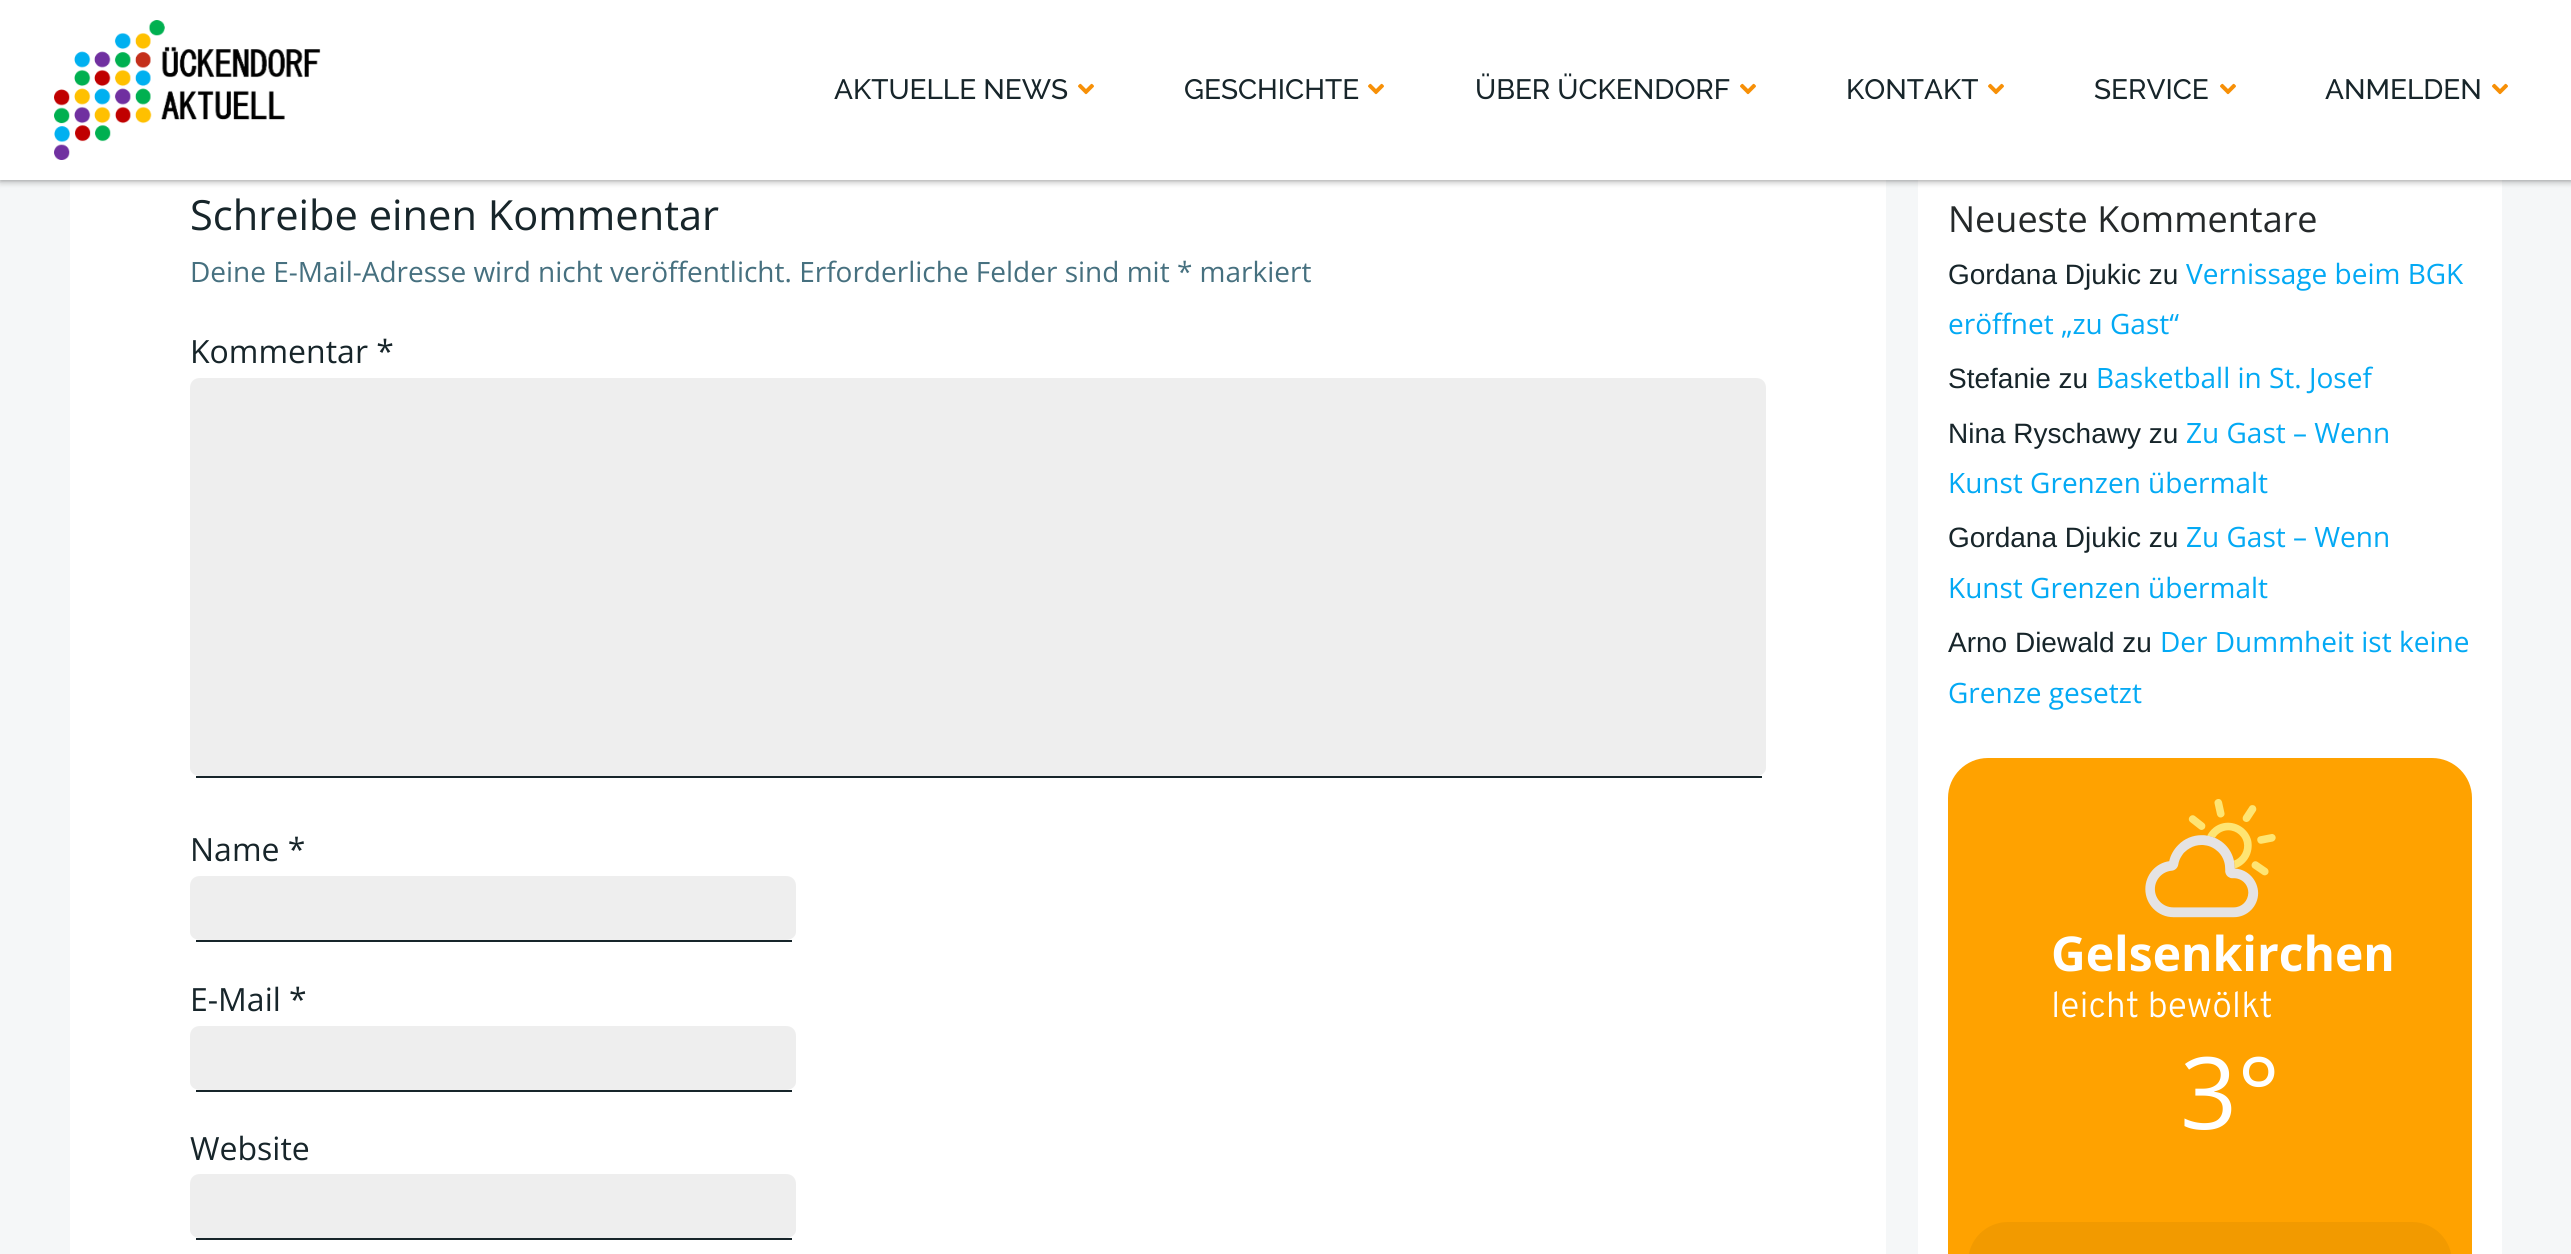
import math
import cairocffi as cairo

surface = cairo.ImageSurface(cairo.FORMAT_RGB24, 2571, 1254)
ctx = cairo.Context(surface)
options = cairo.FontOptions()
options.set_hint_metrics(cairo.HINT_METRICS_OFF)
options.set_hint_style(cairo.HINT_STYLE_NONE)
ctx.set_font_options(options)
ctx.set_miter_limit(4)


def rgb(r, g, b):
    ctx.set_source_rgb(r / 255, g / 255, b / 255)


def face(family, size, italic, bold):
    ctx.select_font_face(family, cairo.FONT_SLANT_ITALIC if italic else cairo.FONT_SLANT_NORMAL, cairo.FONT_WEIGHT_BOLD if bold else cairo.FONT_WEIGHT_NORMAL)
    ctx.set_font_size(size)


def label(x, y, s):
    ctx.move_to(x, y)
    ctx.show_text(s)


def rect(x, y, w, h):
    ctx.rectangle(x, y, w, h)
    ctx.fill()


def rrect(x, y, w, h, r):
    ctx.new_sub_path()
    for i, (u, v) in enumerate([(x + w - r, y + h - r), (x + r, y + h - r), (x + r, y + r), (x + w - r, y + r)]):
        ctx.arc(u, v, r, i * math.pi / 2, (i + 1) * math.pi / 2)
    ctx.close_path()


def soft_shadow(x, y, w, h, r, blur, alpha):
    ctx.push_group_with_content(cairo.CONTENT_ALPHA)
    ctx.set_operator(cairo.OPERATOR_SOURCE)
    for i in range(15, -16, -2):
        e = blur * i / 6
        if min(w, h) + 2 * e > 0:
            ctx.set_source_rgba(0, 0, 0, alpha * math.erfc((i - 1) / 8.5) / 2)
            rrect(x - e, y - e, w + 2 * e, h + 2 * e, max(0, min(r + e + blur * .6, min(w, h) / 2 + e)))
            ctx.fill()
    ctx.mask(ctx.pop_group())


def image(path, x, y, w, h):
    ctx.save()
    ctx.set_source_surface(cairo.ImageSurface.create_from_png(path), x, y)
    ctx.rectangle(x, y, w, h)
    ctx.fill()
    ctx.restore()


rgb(245, 247, 248)
ctx.paint()
rgb(255, 255, 255)
rect(70, 180, 1816, 1074)
rect(1918, 180, 584, 1074)
rgb(0, 0, 0)
soft_shadow(0, 0, 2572, 180, 0, 4, 0.5)
rgb(255, 255, 255)
rect(0, 0, 2571, 180)
image('image0.png', 54, 20, 267, 140)
face('Raleway Medium', 28, 0, 0)
rgb(23, 37, 42)
label(834, 99, 'AKTUELLE NEWS')
image('image1.png', 1078, 83, 16, 12)
label(1184, 99, 'GESCHICHTE')
image('image1.png', 1368, 83, 16, 12)
label(1475, 99, 'ÜBER ÜCKENDORF')
image('image1.png', 1740, 83, 16, 12)
label(1846, 99, 'KONTAKT')
image('image1.png', 1988, 83, 16, 12)
label(2094, 99, 'SERVICE')
image('image1.png', 2220, 83, 16, 12)
label(2325, 99, 'ANMELDEN')
image('image1.png', 2492, 83, 16, 12)
face('Open Sans', 41.6, 0, 0)
label(190, 230, 'Schreibe einen Kommentar')
face('Open Sans', 28, 0, 0)
rgb(70, 112, 127)
label(190, 282, 'Deine E-Mail-Adresse wird nicht veröffentlicht. Erforderliche Felder sind mit * markiert')
face('Open Sans', 32, 0, 0)
rgb(23, 37, 42)
label(190, 363, 'Kommentar *')
rgb(238, 238, 238)
ctx.new_path()
ctx.move_to(200, 378)
ctx.line_to(1756, 378)
ctx.curve_to(1762, 378, 1766, 382, 1766, 388)
ctx.line_to(1766, 768)
ctx.curve_to(1766, 772, 1762, 776, 1756, 776)
ctx.line_to(200, 776)
ctx.curve_to(194, 776, 190, 772, 190, 768)
ctx.line_to(190, 388)
ctx.curve_to(190, 382, 194, 378, 200, 378)
ctx.close_path()
ctx.fill()
rgb(23, 37, 42)
rect(196, 776, 1566, 2)
label(190, 861, 'Name *')
rgb(238, 238, 238)
ctx.new_path()
ctx.move_to(200, 876)
ctx.line_to(786, 876)
ctx.curve_to(792, 876, 796, 880, 796, 886)
ctx.line_to(796, 932)
ctx.curve_to(796, 936, 792, 940, 786, 940)
ctx.line_to(200, 940)
ctx.curve_to(194, 940, 190, 936, 190, 932)
ctx.line_to(190, 886)
ctx.curve_to(190, 880, 194, 876, 200, 876)
ctx.close_path()
ctx.fill()
rgb(23, 37, 42)
rect(196, 940, 596, 2)
label(190, 1011, 'E-Mail *')
rgb(238, 238, 238)
ctx.new_path()
ctx.move_to(200, 1026)
ctx.line_to(786, 1026)
ctx.curve_to(792, 1026, 796, 1030, 796, 1036)
ctx.line_to(796, 1082)
ctx.curve_to(796, 1086, 792, 1090, 786, 1090)
ctx.line_to(200, 1090)
ctx.curve_to(194, 1090, 190, 1086, 190, 1082)
ctx.line_to(190, 1036)
ctx.curve_to(190, 1030, 194, 1026, 200, 1026)
ctx.close_path()
ctx.fill()
rgb(23, 37, 42)
rect(196, 1090, 596, 2)
label(190, 1160, 'Website')
rgb(238, 238, 238)
ctx.new_path()
ctx.move_to(200, 1174)
ctx.line_to(786, 1174)
ctx.curve_to(792, 1174, 796, 1178, 796, 1184)
ctx.line_to(796, 1230)
ctx.curve_to(796, 1234, 792, 1238, 786, 1238)
ctx.line_to(200, 1238)
ctx.curve_to(194, 1238, 190, 1234, 190, 1230)
ctx.line_to(190, 1184)
ctx.curve_to(190, 1178, 194, 1174, 200, 1174)
ctx.close_path()
ctx.fill()
rgb(23, 37, 42)
rect(196, 1238, 596, 2)
face('Open Sans', 36, 0, 0)
rgb(37, 41, 42)
label(1948, 232, 'Neueste Kommentare')
face('Liberation Sans', 28, 0, 0)
rgb(23, 37, 42)
label(1948, 284, 'Gordana Djukic zu')
face('Open Sans', 28, 0, 0)
rgb(3, 169, 244)
label(2186, 284, 'Vernissage beim BGK')
label(1948, 334, 'eröffnet „zu Gast“')
face('Liberation Sans', 28, 0, 0)
rgb(23, 37, 42)
label(1948, 388, 'Stefanie zu')
face('Open Sans', 28, 0, 0)
rgb(3, 169, 244)
label(2096, 388, 'Basketball in St. Josef')
face('Liberation Sans', 28, 0, 0)
rgb(23, 37, 42)
label(1948, 443, 'Nina Ryschawy zu')
face('Open Sans', 28, 0, 0)
rgb(3, 169, 244)
label(2186, 443, 'Zu Gast – Wenn')
label(1948, 493, 'Kunst Grenzen übermalt')
face('Liberation Sans', 28, 0, 0)
rgb(23, 37, 42)
label(1948, 547, 'Gordana Djukic zu')
face('Open Sans', 28, 0, 0)
rgb(3, 169, 244)
label(2186, 547, 'Zu Gast – Wenn')
label(1948, 598, 'Kunst Grenzen übermalt')
face('Liberation Sans', 28, 0, 0)
rgb(23, 37, 42)
label(1948, 652, 'Arno Diewald zu')
face('Open Sans', 28, 0, 0)
rgb(3, 169, 244)
label(2160, 652, 'Der Dummheit ist keine')
label(1948, 703, 'Grenze gesetzt')
rgb(255, 162, 0)
rrect(1948, 758, 524, 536, 40)
ctx.fill()
image('image2.png', 2145, 799, 131, 119)
face('Open Sans', 48, 0, 1)
rgb(255, 255, 255)
label(2051, 971, 'Gelsenkirchen')
face('Overpass Light', 36, 0, 0)
label(2051, 1017, 'leicht bewölkt')
face('Open Sans', 100, 0, 0)
label(2180, 1129, '3°')
rgb(242, 154, 0)
rrect(1968, 1222, 484, 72, 40)
ctx.fill()
surface.write_to_png('render.png')
